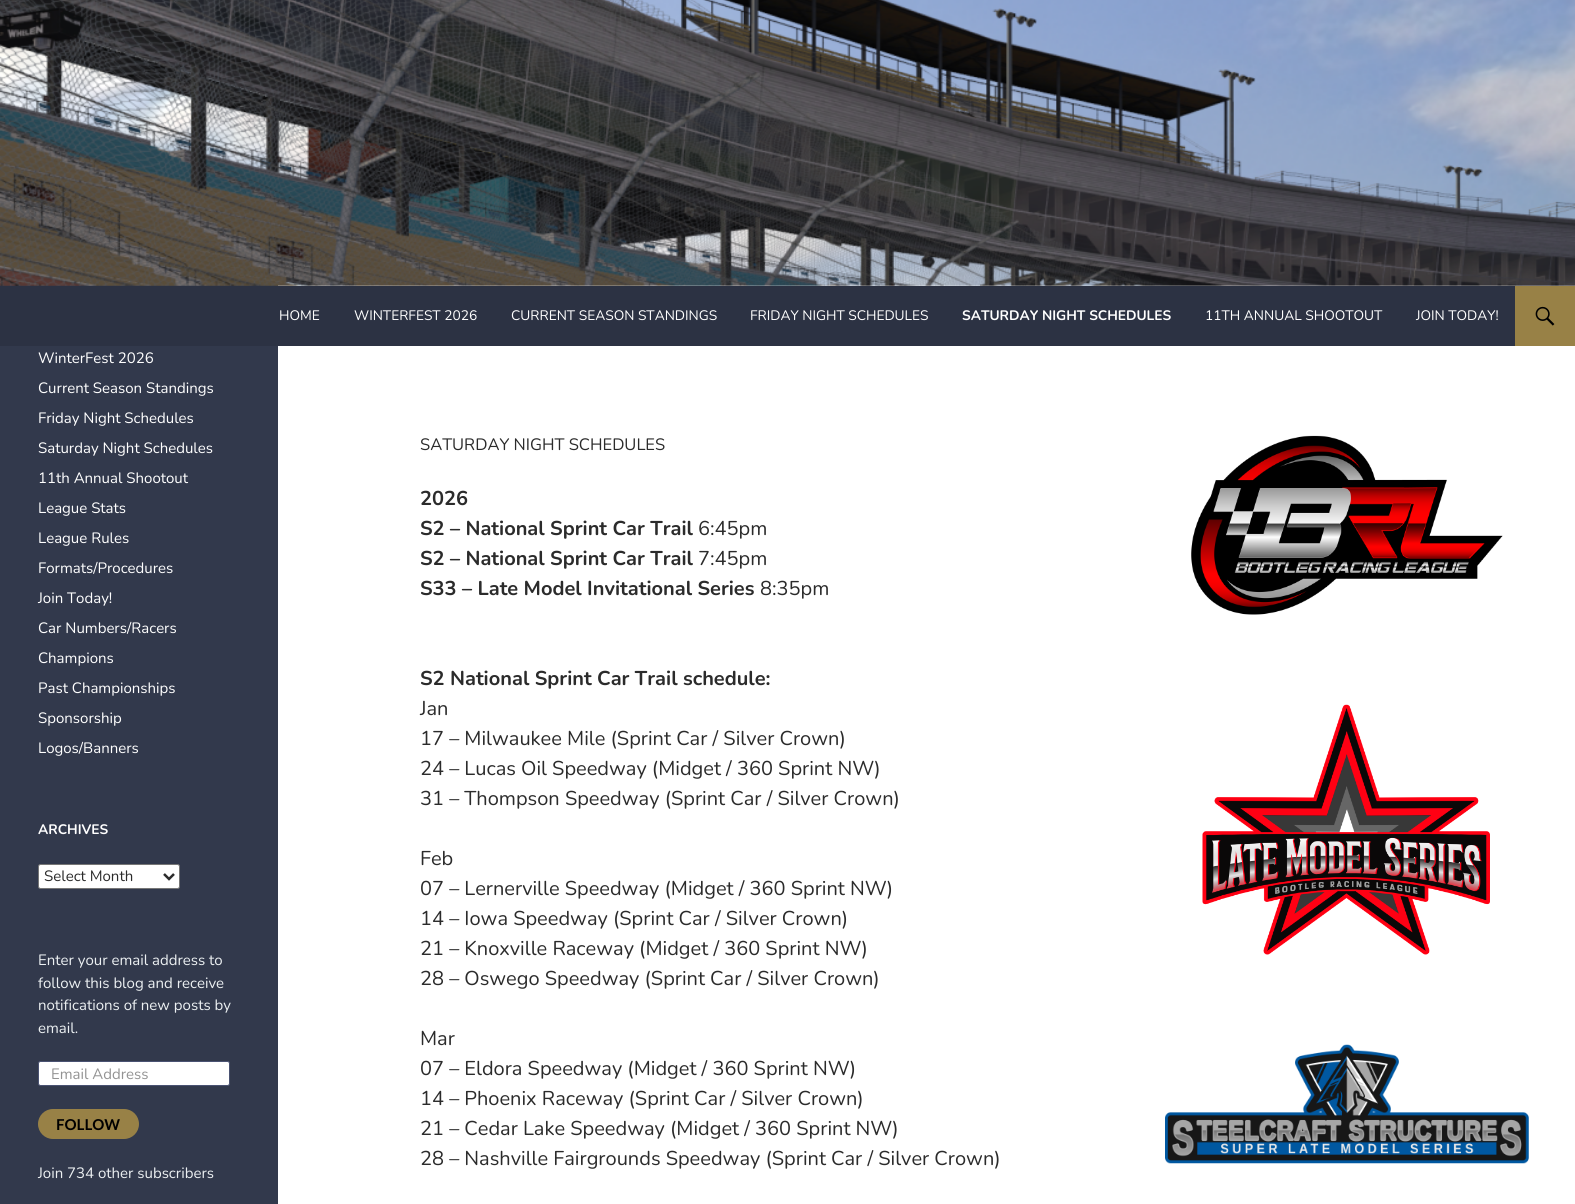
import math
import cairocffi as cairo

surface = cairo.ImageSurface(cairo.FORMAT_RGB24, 1575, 1204)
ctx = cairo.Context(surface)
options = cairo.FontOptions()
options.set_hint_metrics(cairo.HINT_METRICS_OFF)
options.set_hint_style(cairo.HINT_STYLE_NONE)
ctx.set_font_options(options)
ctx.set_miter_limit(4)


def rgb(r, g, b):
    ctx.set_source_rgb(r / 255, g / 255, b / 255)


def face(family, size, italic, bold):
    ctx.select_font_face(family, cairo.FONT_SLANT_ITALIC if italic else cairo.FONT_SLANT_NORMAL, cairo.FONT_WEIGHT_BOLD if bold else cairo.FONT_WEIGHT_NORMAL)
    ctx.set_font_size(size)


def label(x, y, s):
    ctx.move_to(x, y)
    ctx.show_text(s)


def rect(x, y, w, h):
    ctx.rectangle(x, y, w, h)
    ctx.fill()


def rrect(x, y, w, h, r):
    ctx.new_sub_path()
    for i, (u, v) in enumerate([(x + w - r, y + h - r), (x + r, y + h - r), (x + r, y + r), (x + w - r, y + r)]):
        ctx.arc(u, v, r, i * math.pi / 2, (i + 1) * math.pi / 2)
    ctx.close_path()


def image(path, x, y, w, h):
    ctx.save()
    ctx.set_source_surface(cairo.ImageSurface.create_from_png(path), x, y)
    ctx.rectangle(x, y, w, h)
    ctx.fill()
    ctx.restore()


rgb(255, 255, 255)
ctx.paint()
rgb(50, 57, 76)
rect(0, 285, 278, 919)
image('image0.png', 0, 0, 1575, 286)
rgb(44, 50, 67)
rect(0, 286, 1515, 60)
face('Nunito', 13.75, 0, 0)
rgb(255, 255, 255)
label(279, 320, 'HOME')
label(354, 320, 'WINTERFEST 2026')
label(511, 320, 'CURRENT SEASON STANDINGS')
label(750, 320, 'FRIDAY NIGHT SCHEDULES')
face('Nunito', 13.75, 0, 1)
label(962, 320, 'SATURDAY NIGHT SCHEDULES')
face('Nunito', 13.75, 0, 0)
label(1205, 320, '11TH ANNUAL SHOOTOUT')
label(1416, 320, 'JOIN TODAY!')
rgb(152, 129, 70)
rect(1515, 286, 60, 60)
image('image1.png', 1535, 306, 20, 20)
face('Nunito', 15, 0, 0)
rgb(255, 255, 255)
label(38, 363, 'WinterFest 2026')
label(38, 393, 'Current Season Standings')
label(38, 423, 'Friday Night Schedules')
label(38, 453, 'Saturday Night Schedules')
label(38, 483, '11th Annual Shootout')
label(38, 513, 'League Stats')
label(38, 543, 'League Rules')
label(38, 573, 'Formats/Procedures')
label(38, 603, 'Join Today!')
label(38, 633, 'Car Numbers/Racers')
label(38, 663, 'Champions')
label(38, 693, 'Past Championships')
label(38, 723, 'Sponsorship')
label(38, 753, 'Logos/Banners')
face('Nunito', 13.75, 0, 1)
label(38, 834, 'ARCHIVES')
rrect(38.5, 864.5, 141, 24, 2)
ctx.fill_preserve()
rgb(118, 118, 118)
ctx.set_line_width(1)
ctx.stroke()
ctx.new_path()
ctx.move_to(164, 874)
ctx.line_to(169, 879)
ctx.line_to(174, 874)
rgb(43, 43, 43)
ctx.set_line_width(2.5)
ctx.stroke()
face('Nunito', 15, 0, 0)
label(44, 881, 'Select Month')
rgb(236, 240, 242)
label(38, 965, 'Enter your email address to')
label(38, 988, 'follow this blog and receive')
label(38, 1010, 'notifications of new posts by')
label(38, 1033, 'email.')
rgb(255, 255, 255)
rrect(38.5, 1061.5, 191, 24, 2)
ctx.fill_preserve()
rgb(74, 82, 114)
ctx.set_line_width(1)
ctx.stroke()
rgb(147, 147, 147)
label(51, 1079, 'Email Address')
rgb(152, 129, 70)
rrect(38, 1109, 101, 30, 15)
ctx.fill()
face('Lato', 15, 0, 1)
rgb(0, 0, 0)
label(56, 1130, 'FOLLOW')
face('Nunito', 15, 0, 0)
rgb(236, 240, 242)
label(38, 1178, 'Join 734 other subscribers')
face('Nunito', 16.5, 0, 0)
rgb(43, 43, 43)
label(420, 450, 'SATURDAY NIGHT SCHEDULES')
face('Nunito', 20, 0, 1)
label(420, 505, '2026')
label(420, 535, 'S2 – National Sprint Car Trail')
face('Nunito', 20, 0, 0)
label(698, 535, '6:45pm')
face('Nunito', 20, 0, 1)
label(420, 565, 'S2 – National Sprint Car Trail')
face('Nunito', 20, 0, 0)
label(698, 565, '7:45pm')
face('Nunito', 20, 0, 1)
label(420, 595, 'S33 – Late Model Invitational Series')
face('Nunito', 20, 0, 0)
label(760, 595, '8:35pm')
face('Nunito', 20, 0, 1)
label(420, 685, 'S2 National Sprint Car Trail schedule:')
face('Nunito', 20, 0, 0)
label(420, 715, 'Jan')
label(420, 745, '17 – Milwaukee Mile (Sprint Car / Silver Crown)')
label(420, 775, '24 – Lucas Oil Speedway (Midget / 360 Sprint NW)')
label(420, 805, '31 – Thompson Speedway (Sprint Car / Silver Crown)')
label(420, 865, 'Feb')
label(420, 895, '07 – Lernerville Speedway (Midget / 360 Sprint NW)')
label(420, 925, '14 – Iowa Speedway (Sprint Car / Silver Crown)')
label(420, 955, '21 – Knoxville Raceway (Midget / 360 Sprint NW)')
label(420, 985, '28 – Oswego Speedway (Sprint Car / Silver Crown)')
label(420, 1045, 'Mar')
label(420, 1075, '07 – Eldora Speedway (Midget / 360 Sprint NW)')
label(420, 1105, '14 – Phoenix Raceway (Sprint Car / Silver Crown)')
label(420, 1135, '21 – Cedar Lake Speedway (Midget / 360 Sprint NW)')
label(420, 1165, '28 – Nashville Fairgrounds Speedway (Sprint Car / Silver Crown)')
image('image2.png', 1191, 435, 312, 180)
image('image3.png', 1202, 704, 288, 251)
image('image4.png', 1165, 1044, 364, 120)
surface.write_to_png('render.png')
